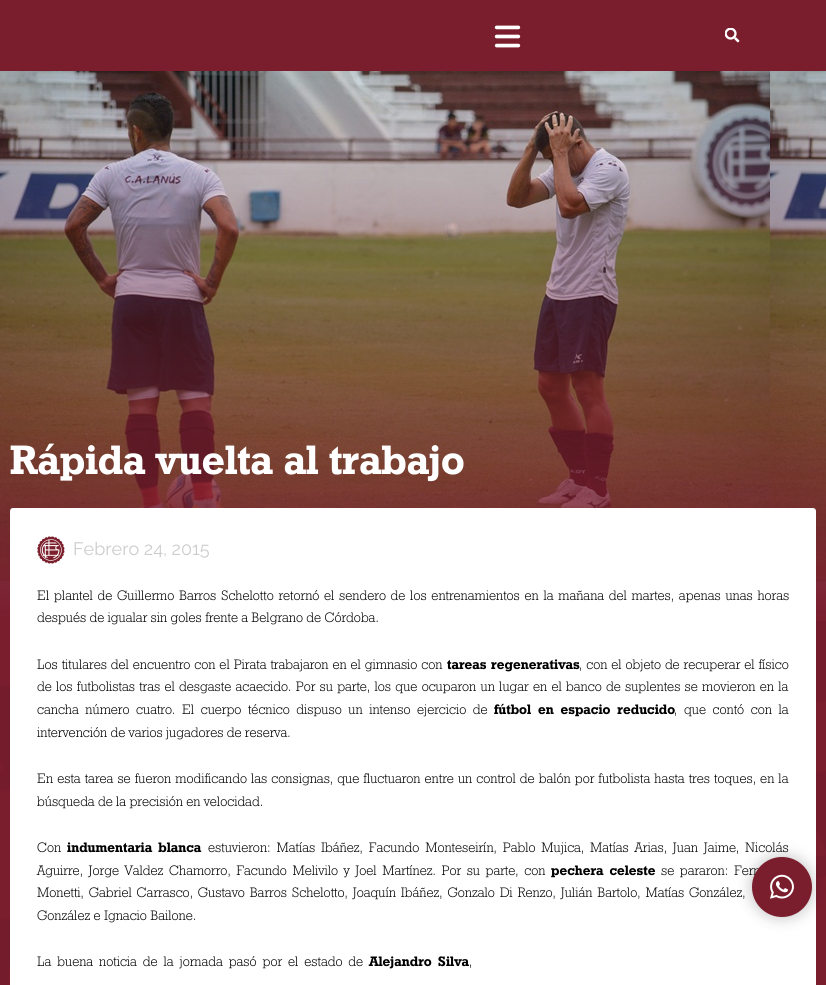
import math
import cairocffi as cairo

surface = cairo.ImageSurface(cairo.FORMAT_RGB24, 826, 985)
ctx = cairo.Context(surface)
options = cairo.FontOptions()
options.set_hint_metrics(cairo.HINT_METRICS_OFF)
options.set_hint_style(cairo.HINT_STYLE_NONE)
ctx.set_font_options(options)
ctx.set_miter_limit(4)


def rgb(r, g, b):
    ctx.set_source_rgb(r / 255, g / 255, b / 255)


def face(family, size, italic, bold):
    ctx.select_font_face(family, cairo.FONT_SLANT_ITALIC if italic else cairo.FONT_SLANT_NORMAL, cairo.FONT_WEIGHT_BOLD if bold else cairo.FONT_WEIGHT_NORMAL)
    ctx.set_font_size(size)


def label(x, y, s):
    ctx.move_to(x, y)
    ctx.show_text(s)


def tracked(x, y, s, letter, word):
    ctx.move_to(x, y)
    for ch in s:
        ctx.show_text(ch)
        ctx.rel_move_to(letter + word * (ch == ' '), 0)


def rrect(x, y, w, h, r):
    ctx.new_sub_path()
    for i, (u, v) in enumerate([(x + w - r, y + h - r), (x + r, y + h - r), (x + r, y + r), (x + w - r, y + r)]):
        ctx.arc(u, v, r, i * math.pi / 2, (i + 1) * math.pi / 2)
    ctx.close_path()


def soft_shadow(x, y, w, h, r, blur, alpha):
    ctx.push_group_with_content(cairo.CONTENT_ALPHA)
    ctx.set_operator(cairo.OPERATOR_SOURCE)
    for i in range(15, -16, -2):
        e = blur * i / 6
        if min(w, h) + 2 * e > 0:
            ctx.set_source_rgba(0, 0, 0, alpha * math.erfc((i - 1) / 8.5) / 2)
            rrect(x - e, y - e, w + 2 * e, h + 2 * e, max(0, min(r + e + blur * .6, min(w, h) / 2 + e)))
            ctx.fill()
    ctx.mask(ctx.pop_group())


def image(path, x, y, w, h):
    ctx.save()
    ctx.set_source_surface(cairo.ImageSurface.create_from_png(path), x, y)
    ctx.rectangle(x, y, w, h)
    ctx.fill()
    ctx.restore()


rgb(122, 29, 45)
ctx.paint()
image('image0.png', 494, 25, 27, 23)
image('image1.png', 725, 28, 15, 15)
image('image2.png', 0, 71, 826, 550)
face('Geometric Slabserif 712', 41, 0, 1)
rgb(255, 255, 255)
label(10, 474, 'Rápida vuelta al trabajo')
image('image4.png', 0, 621, 826, 364)
rrect(10, 508, 806, 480, 3)
ctx.fill()
image('image3.png', 37, 536, 28, 28)
face('Raleway', 18, 0, 0)
rgb(204, 204, 204)
label(73, 555, 'Febrero 24, 2015')
face('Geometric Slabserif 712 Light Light', 13.68, 0, 0)
rgb(0, 0, 0)
tracked(37, 600, 'El plantel de Guillermo Barros Schelotto retornó el sendero de los entrenamientos en la mañana del martes, apenas unas horas', 0, 1.4)
label(37, 622, 'después de igualar sin goles frente a Belgrano de Córdoba.')
tracked(37, 669, 'Los titulares del encuentro con el Pirata trabajaron en el gimnasio con', 0, 0.6)
face('Geometric Slabserif 712', 13.68, 0, 1)
tracked(447, 669, 'tareas regenerativas', 0, 1)
face('Geometric Slabserif 712 Light Light', 13.68, 0, 0)
tracked(579, 669, ', con el objeto de recuperar el físico', 0, 0.6)
tracked(37, 691, 'de los futbolistas tras el desgaste acaecido. Por su parte, los que ocuparon un lugar en el banco de suplentes se movieron en la', 0, 0.95)
tracked(37, 714, 'cancha número cuatro. El cuerpo técnico dispuso un intenso ejercicio de', 0, 3.25)
face('Geometric Slabserif 712', 13.68, 0, 1)
tracked(494, 714, 'fútbol en espacio reducido', 0, 3.25)
face('Geometric Slabserif 712 Light Light', 13.68, 0, 0)
tracked(674, 714, ', que contó con la', 0, 3.25)
label(37, 737, 'intervención de varios jugadores de reserva.')
tracked(37, 783, 'En esta tarea se fueron modificando las consignas, que fluctuaron entre un control de balón por futbolista hasta tres toques, en la', 0, 0.75)
label(37, 806, 'búsqueda de la precisión en velocidad.')
label(37, 852, 'Con')
face('Geometric Slabserif 712', 13.68, 0, 1)
tracked(67, 852, 'indumentaria blanca', 0, 2.5)
face('Geometric Slabserif 712 Light Light', 13.68, 0, 0)
tracked(208, 852, 'estuvieron: Matías Ibáñez, Facundo Monteseirín, Pablo Mujica, Matías Arias, Juan Jaime, Nicolás', 0, 2.5)
tracked(37, 875, 'Aguirre, Jorge Valdez Chamorro, Facundo Melivilo y Joel Martínez. Por su parte, con', 0, 2.25)
face('Geometric Slabserif 712', 13.68, 0, 1)
tracked(551, 875, 'pechera celeste', 0, 2.25)
face('Geometric Slabserif 712 Light Light', 13.68, 0, 0)
tracked(661, 875, 'se pararon: Fern', 0, 2.25)
tracked(37, 897, 'Monetti, Gabriel Carrasco, Gustavo Barros Schelotto, Joaquín Ibáñez, Gonzalo Di Renzo, Julián Bartolo, Matías González,', 0, 1.5)
label(37, 920, 'González e Ignacio Bailone.')
tracked(37, 966, 'La buena noticia de la jornada pasó por el estado de', 0, 2.6)
face('Geometric Slabserif 712', 13.68, 0, 1)
tracked(369, 966, 'Alejandro Silva', 0, 2.6)
face('Geometric Slabserif 712 Light Light', 13.68, 0, 0)
label(469, 966, ',')
rgb(0, 0, 0)
soft_shadow(752, 857, 60, 60, 30, 7.5, 0.25)
rgb(122, 29, 45)
ctx.arc(782, 887, 30, 0, 2 * math.pi)
ctx.fill()
image('image5.png', 770, 874, 24, 25)
surface.write_to_png('render.png')
